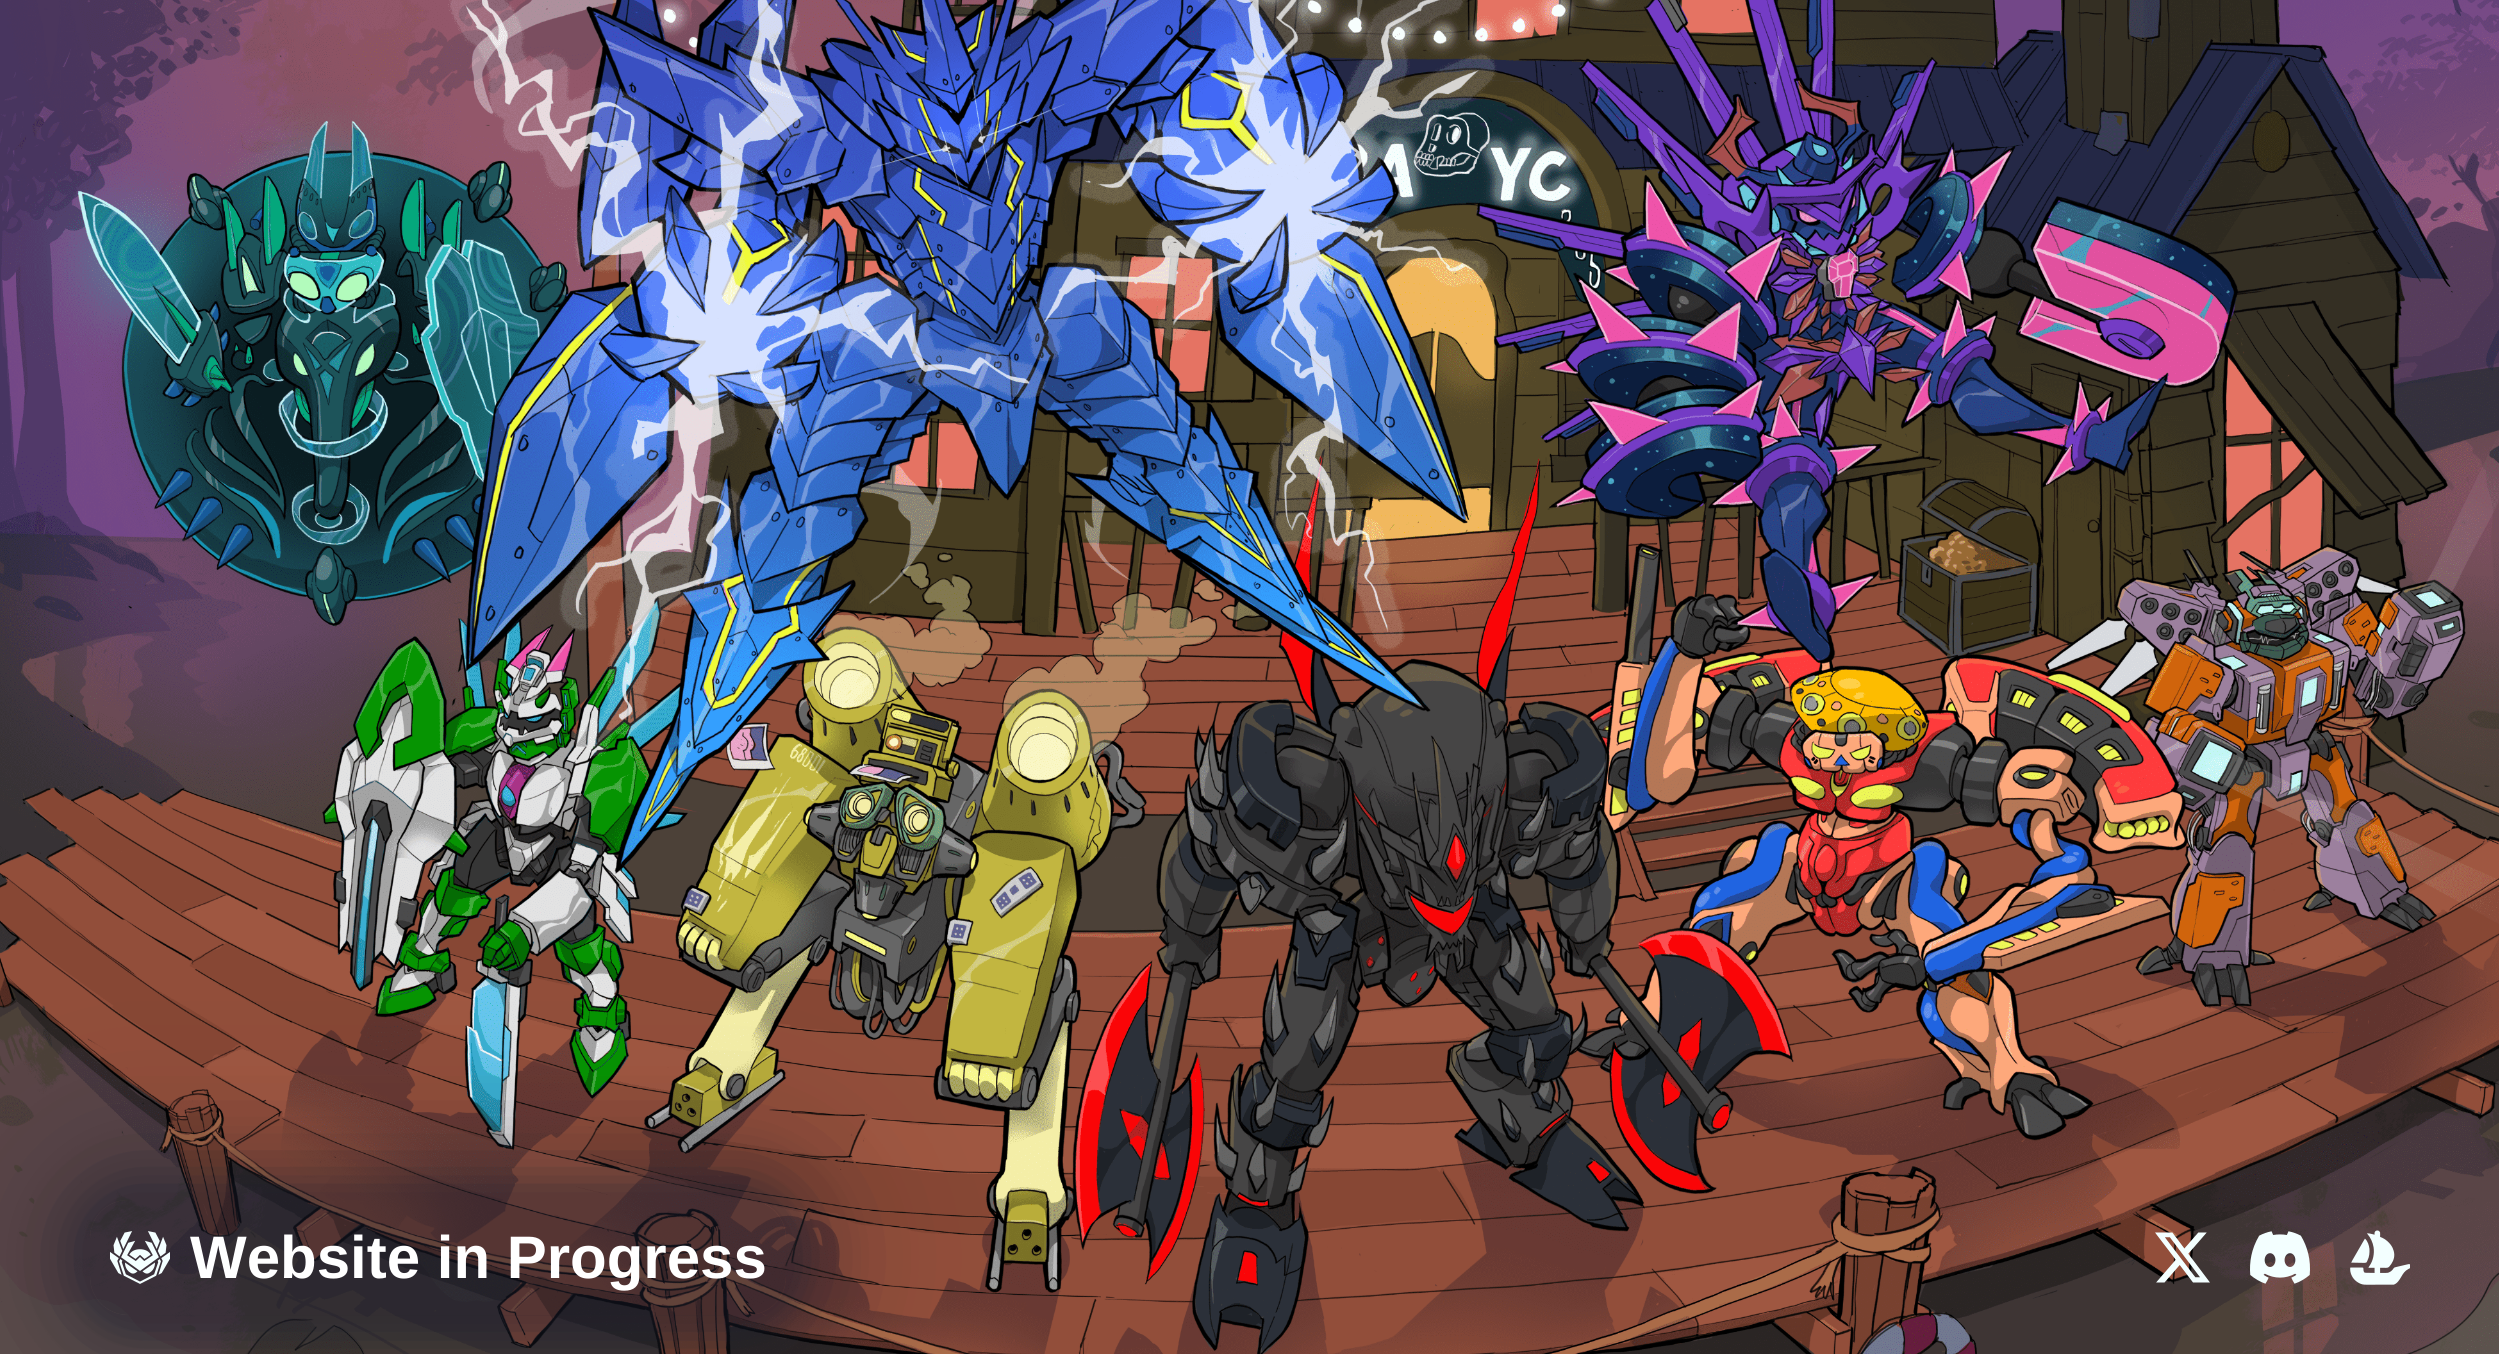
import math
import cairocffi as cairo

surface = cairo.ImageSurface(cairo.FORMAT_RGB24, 2499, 1354)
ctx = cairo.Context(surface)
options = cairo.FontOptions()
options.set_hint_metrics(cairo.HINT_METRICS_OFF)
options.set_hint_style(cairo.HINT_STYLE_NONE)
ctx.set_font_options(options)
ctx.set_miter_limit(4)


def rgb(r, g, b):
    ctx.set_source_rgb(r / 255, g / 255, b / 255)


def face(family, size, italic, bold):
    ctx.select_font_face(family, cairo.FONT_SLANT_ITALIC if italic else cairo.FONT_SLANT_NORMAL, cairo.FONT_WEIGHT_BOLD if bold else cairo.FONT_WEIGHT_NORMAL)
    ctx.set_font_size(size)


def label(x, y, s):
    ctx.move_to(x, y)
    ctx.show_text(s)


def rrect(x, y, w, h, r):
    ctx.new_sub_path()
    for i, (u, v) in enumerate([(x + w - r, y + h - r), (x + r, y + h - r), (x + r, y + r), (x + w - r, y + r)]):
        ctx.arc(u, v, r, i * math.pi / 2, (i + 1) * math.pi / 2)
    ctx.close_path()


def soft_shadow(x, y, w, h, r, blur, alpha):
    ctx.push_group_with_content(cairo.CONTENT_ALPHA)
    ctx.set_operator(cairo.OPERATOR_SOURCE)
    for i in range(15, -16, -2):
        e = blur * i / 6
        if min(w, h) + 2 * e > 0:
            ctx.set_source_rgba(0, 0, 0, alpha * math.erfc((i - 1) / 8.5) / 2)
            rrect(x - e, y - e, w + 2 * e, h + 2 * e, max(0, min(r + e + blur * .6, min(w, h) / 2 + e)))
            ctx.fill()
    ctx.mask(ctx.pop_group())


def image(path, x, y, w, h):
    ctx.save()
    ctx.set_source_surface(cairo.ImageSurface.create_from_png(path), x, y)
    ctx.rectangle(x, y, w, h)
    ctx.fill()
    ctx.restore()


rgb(255, 255, 255)
ctx.paint()
image('image0.png', 0, 0, 2499, 1354)
ctx.save()
ctx.set_fill_rule(cairo.FILL_RULE_EVEN_ODD)
ctx.new_path()
ctx.move_to(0, 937)
ctx.line_to(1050, 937)
ctx.line_to(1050, 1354)
ctx.line_to(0, 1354)
ctx.close_path()
ctx.move_to(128, 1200)
ctx.line_to(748, 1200)
ctx.curve_to(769, 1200, 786, 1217, 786, 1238)
ctx.line_to(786, 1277)
ctx.curve_to(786, 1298, 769, 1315, 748, 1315)
ctx.line_to(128, 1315)
ctx.curve_to(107, 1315, 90, 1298, 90, 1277)
ctx.line_to(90, 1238)
ctx.curve_to(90, 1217, 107, 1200, 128, 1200)
ctx.close_path()
ctx.clip()
rgb(26, 29, 44)
soft_shadow(53, 1163, 771, 190, 75, 75, 0.2)
ctx.restore()
ctx.save()
ctx.set_fill_rule(cairo.FILL_RULE_EVEN_ODD)
ctx.new_path()
ctx.move_to(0, 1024)
ctx.line_to(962, 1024)
ctx.line_to(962, 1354)
ctx.line_to(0, 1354)
ctx.close_path()
ctx.move_to(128, 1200)
ctx.line_to(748, 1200)
ctx.curve_to(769, 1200, 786, 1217, 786, 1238)
ctx.line_to(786, 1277)
ctx.curve_to(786, 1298, 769, 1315, 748, 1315)
ctx.line_to(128, 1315)
ctx.curve_to(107, 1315, 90, 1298, 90, 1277)
ctx.line_to(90, 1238)
ctx.curve_to(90, 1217, 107, 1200, 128, 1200)
ctx.close_path()
ctx.clip()
rgb(26, 29, 44)
soft_shadow(65, 1175, 746, 165, 63, 50, 0.4)
ctx.restore()
ctx.save()
ctx.set_fill_rule(cairo.FILL_RULE_EVEN_ODD)
ctx.new_path()
ctx.move_to(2, 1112)
ctx.line_to(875, 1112)
ctx.line_to(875, 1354)
ctx.line_to(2, 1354)
ctx.close_path()
ctx.move_to(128, 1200)
ctx.line_to(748, 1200)
ctx.curve_to(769, 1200, 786, 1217, 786, 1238)
ctx.line_to(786, 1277)
ctx.curve_to(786, 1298, 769, 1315, 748, 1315)
ctx.line_to(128, 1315)
ctx.curve_to(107, 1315, 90, 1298, 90, 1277)
ctx.line_to(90, 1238)
ctx.curve_to(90, 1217, 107, 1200, 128, 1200)
ctx.close_path()
ctx.clip()
rgb(26, 29, 44)
soft_shadow(78, 1188, 721, 140, 50, 25, 0.4)
ctx.restore()
ctx.set_source_rgba(0.102, 0.114, 0.173, 0.5)
rrect(90, 1200, 696, 115, 38)
ctx.fill()
image('image1.png', 110, 1231, 60, 53)
face('Liberation Sans', 60, 0, 1)
rgb(255, 255, 255)
label(190, 1278, 'Website in Progress')
image('image2.png', 2155, 1232, 55, 51)
image('image3.png', 2250, 1231, 60, 53)
image('image4.png', 2350, 1230, 60, 55)
surface.write_to_png('render.png')
